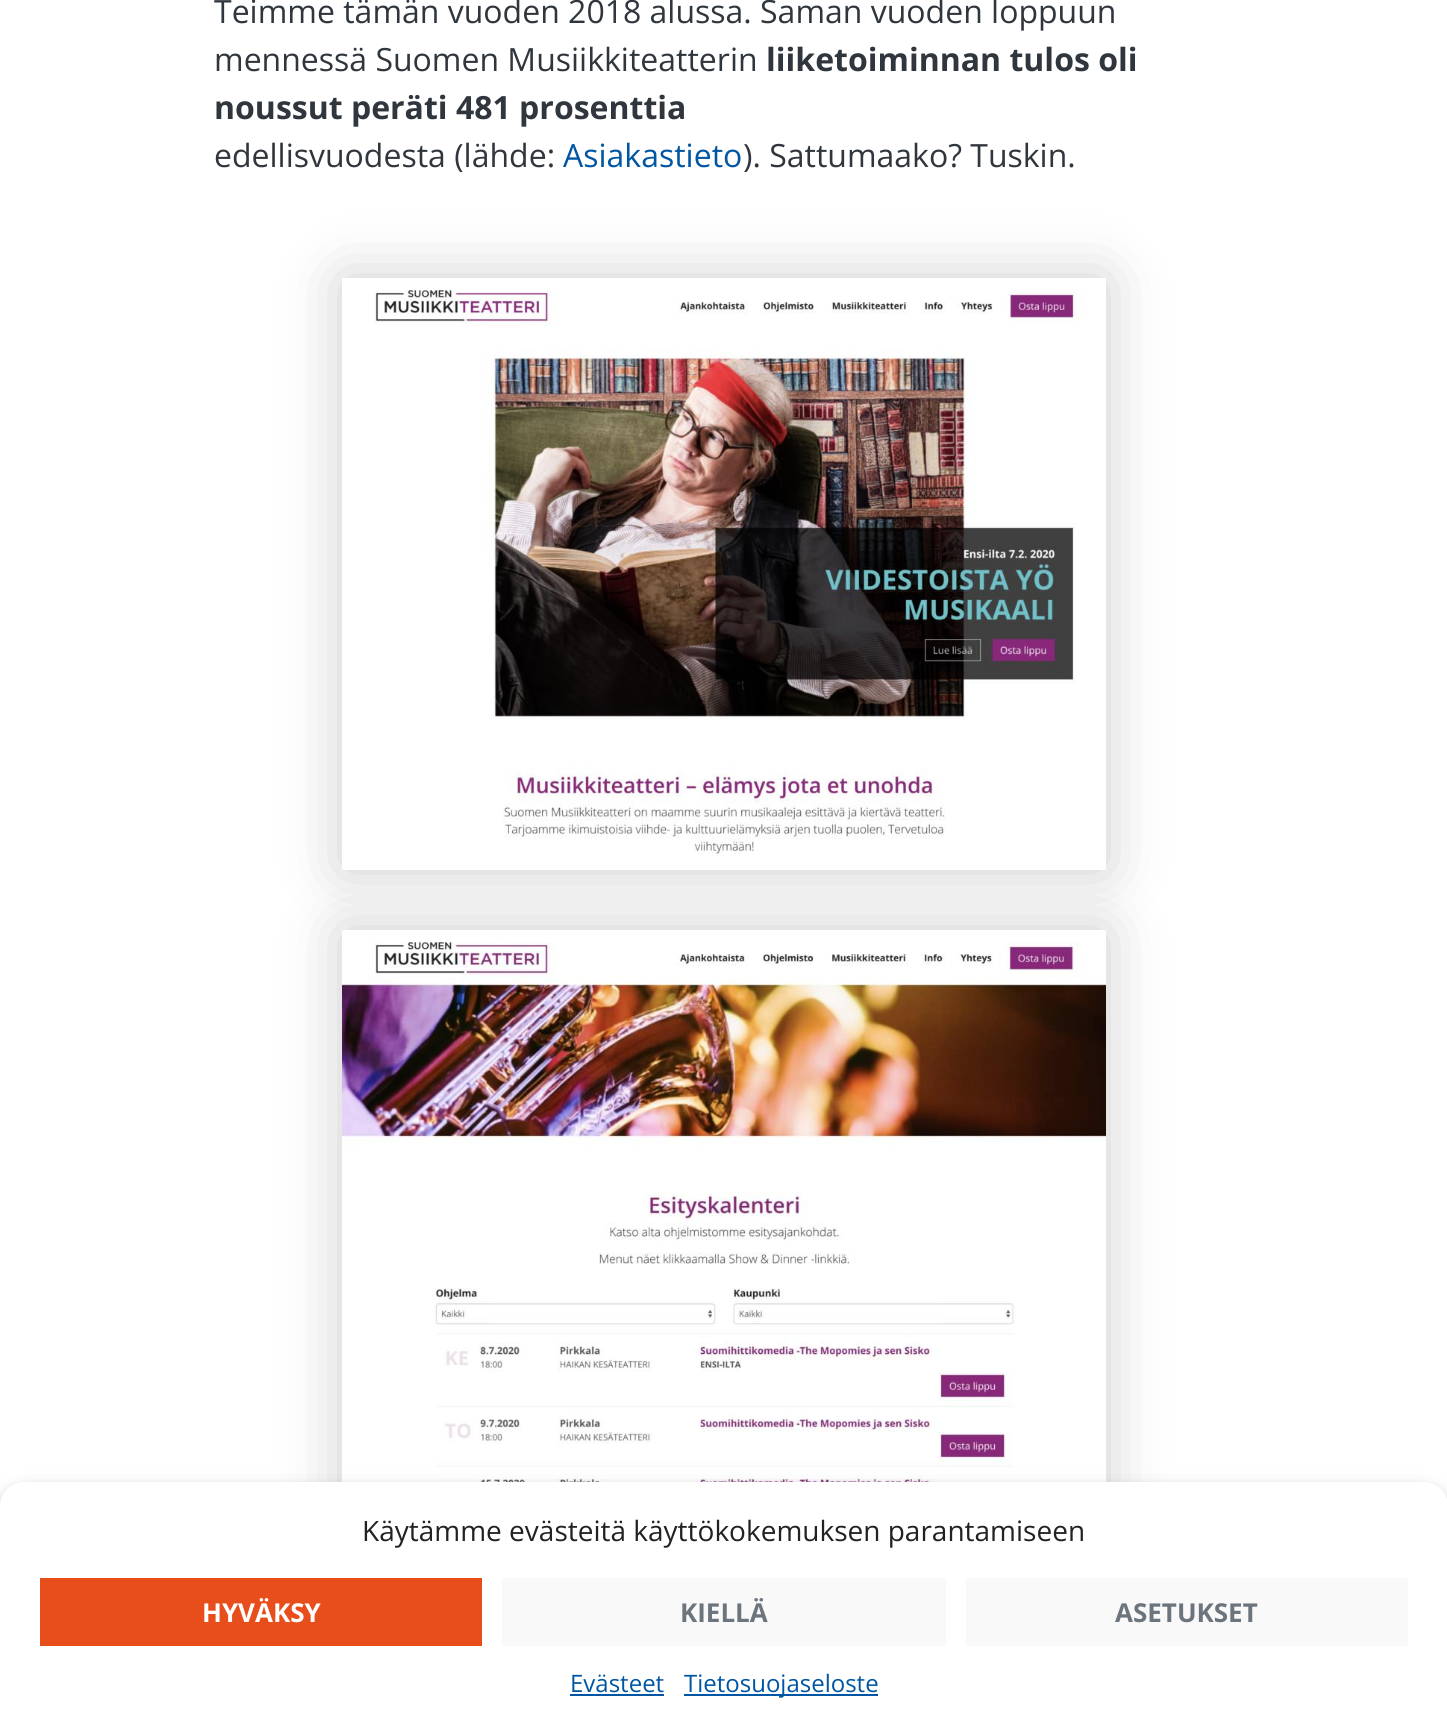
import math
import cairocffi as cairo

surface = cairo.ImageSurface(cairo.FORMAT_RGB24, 1447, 1731)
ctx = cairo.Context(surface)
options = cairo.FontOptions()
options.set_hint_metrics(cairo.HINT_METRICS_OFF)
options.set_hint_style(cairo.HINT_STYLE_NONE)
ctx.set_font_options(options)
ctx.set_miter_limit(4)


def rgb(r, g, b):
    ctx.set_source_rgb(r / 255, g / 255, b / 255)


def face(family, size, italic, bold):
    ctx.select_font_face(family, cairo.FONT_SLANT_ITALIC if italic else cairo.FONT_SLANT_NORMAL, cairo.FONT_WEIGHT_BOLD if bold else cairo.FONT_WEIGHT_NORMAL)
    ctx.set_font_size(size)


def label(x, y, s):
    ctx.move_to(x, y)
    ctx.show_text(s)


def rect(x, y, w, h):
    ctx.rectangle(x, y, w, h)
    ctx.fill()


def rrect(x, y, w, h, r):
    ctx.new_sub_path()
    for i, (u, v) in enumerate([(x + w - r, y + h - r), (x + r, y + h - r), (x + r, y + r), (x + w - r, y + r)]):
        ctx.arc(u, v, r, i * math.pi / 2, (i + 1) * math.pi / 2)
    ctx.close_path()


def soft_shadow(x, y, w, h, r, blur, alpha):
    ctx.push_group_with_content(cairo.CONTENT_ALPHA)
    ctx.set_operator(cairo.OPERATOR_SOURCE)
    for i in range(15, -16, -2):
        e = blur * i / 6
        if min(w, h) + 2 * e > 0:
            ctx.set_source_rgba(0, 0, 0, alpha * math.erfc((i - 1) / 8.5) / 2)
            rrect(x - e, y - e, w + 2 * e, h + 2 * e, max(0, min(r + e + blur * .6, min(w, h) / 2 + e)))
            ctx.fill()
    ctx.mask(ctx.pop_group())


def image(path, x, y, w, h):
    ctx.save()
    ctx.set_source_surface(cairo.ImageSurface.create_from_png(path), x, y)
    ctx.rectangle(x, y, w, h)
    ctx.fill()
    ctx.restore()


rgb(255, 255, 255)
ctx.paint()
face('Open Sans', 32, 0, 0)
rgb(48, 54, 61)
label(214, 23, 'Teimme tämän vuoden 2018 alussa. Saman vuoden loppuun')
label(214, 71, 'mennessä Suomen Musiikkiteatterin')
face('Open Sans', 32, 0, 1)
label(766, 71, 'liiketoiminnan tulos oli')
label(214, 119, 'noussut peräti 481 prosenttia')
face('Open Sans', 32, 0, 0)
label(214, 167, 'edellisvuodesta (lähde:')
rgb(0, 86, 163)
label(563, 167, 'Asiakastieto')
rgb(48, 54, 61)
label(743, 167, '). Sattumaako? Tuskin.')
ctx.save()
ctx.set_fill_rule(cairo.FILL_RULE_EVEN_ODD)
ctx.new_path()
ctx.move_to(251, 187)
ctx.line_to(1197, 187)
ctx.line_to(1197, 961)
ctx.line_to(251, 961)
ctx.close_path()
ctx.move_to(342, 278)
ctx.line_to(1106, 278)
ctx.line_to(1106, 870)
ctx.line_to(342, 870)
ctx.close_path()
ctx.clip()
rgb(0, 0, 0)
soft_shadow(342, 278, 764, 592, 0, 30, 0.2)
ctx.restore()
image('image0.png', 373, 290, 709, 567)
ctx.save()
ctx.set_fill_rule(cairo.FILL_RULE_EVEN_ODD)
ctx.new_path()
ctx.move_to(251, 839)
ctx.line_to(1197, 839)
ctx.line_to(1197, 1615)
ctx.line_to(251, 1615)
ctx.close_path()
ctx.move_to(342, 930)
ctx.line_to(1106, 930)
ctx.line_to(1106, 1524)
ctx.line_to(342, 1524)
ctx.close_path()
ctx.clip()
rgb(0, 0, 0)
soft_shadow(342, 930, 764, 594, 0, 30, 0.2)
ctx.restore()
image('image1.png', 342, 942, 764, 540)
rgb(0, 0, 0)
soft_shadow(0, 1488, 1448, 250, 24, 6, 0.23)
soft_shadow(0, 1502, 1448, 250, 24, 15, 0.19)
rgb(255, 255, 255)
ctx.new_path()
ctx.move_to(24, 1482)
ctx.line_to(1424, 1482)
ctx.curve_to(1437.5, 1482, 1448, 1492.5, 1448, 1506)
ctx.line_to(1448, 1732)
ctx.line_to(0, 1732)
ctx.line_to(0, 1506)
ctx.curve_to(0, 1492.5, 10.5, 1482, 24, 1482)
ctx.close_path()
ctx.fill()
face('Open Sans', 28, 0, 0)
rgb(34, 34, 34)
label(362, 1541, 'Käytämme evästeitä käyttökokemuksen parantamiseen')
rgb(232, 78, 27)
rect(40, 1578, 442, 68)
face('Open Sans', 26, 0, 1)
rgb(255, 255, 255)
label(202, 1622, 'HYVÄKSY')
rgb(249, 249, 249)
rect(502, 1578, 444, 68)
rgb(108, 117, 125)
label(680, 1622, 'KIELLÄ')
rgb(249, 249, 249)
rect(966, 1578, 442, 68)
rgb(108, 117, 125)
label(1115, 1622, 'ASETUKSET')
face('Open Sans', 24, 0, 0)
rgb(0, 86, 163)
label(570, 1692, 'Evästeet')
rect(570, 1694, 94, 2)
rect(684, 1694, 194, 2)
label(684, 1692, 'Tietosuojaseloste')
surface.write_to_png('render.png')
